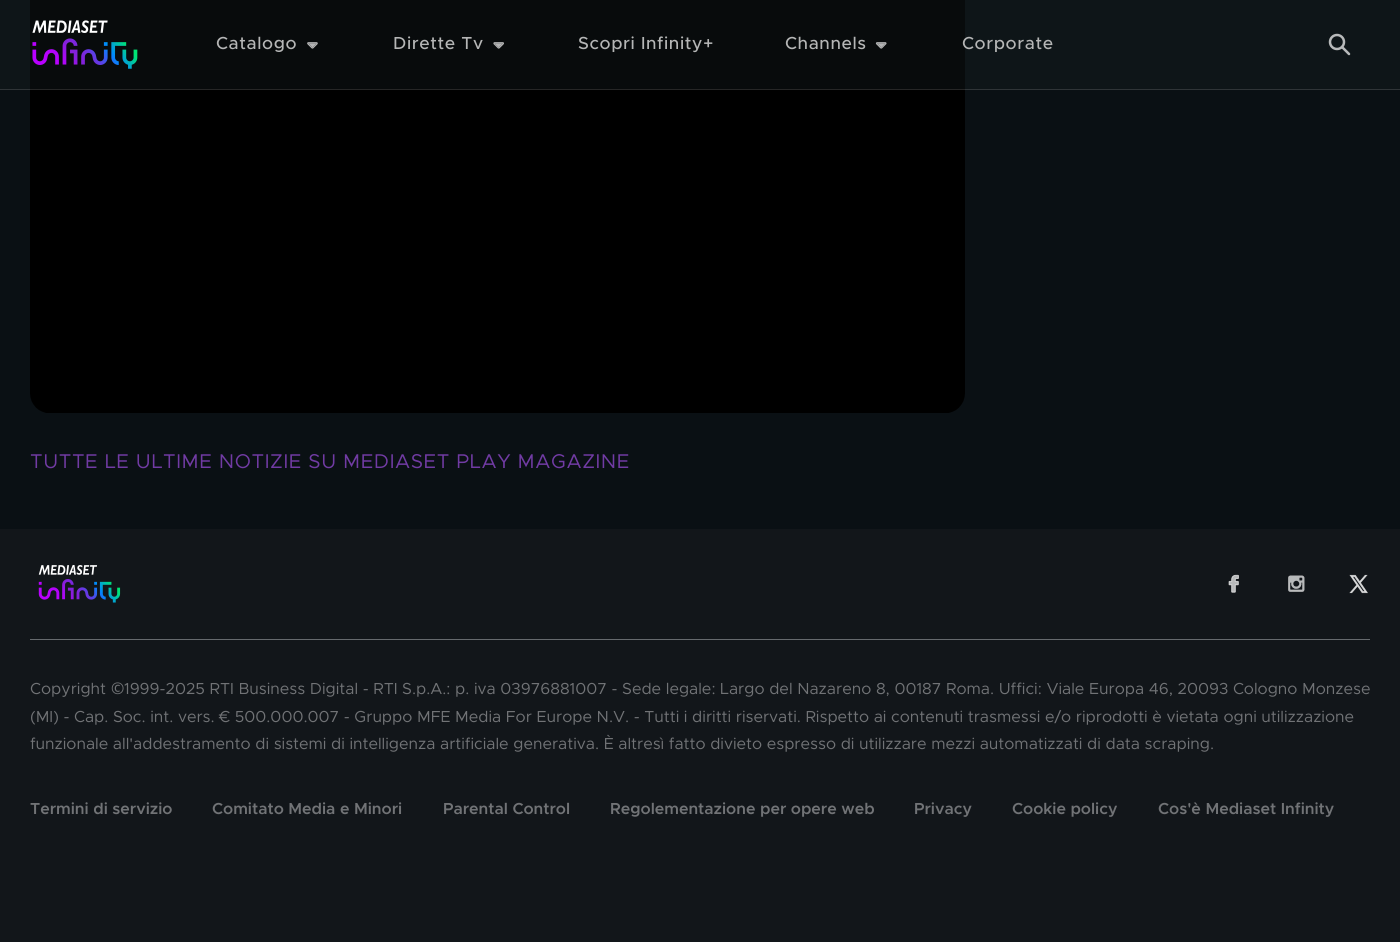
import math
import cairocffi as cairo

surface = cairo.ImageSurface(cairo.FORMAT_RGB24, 1400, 942)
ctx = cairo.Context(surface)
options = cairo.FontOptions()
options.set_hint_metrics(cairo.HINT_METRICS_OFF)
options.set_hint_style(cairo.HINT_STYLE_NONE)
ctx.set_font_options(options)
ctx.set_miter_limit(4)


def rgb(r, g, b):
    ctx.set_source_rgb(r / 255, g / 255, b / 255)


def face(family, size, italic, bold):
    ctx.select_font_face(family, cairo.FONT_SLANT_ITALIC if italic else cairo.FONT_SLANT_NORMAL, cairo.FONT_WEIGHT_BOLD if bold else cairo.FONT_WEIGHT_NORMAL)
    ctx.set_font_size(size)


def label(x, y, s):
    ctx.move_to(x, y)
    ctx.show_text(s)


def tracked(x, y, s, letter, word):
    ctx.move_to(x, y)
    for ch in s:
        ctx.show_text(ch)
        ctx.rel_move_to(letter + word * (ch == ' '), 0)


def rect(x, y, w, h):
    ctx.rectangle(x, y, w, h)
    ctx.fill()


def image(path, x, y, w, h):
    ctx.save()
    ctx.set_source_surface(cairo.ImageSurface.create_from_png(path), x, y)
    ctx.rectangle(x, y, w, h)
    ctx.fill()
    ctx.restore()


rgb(10, 16, 20)
ctx.paint()
image('image4.png', 30, 0, 935, 413)
ctx.set_source_rgba(1, 1, 1, 0.15)
rect(0, 89, 1400, 1)
ctx.set_source_rgba(0.086, 0.11, 0.122, 0.4)
rect(0, 0, 1400, 89)
image('image0.png', 32, 20, 106, 49)
face('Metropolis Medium', 17.5, 0, 0)
rgb(181, 182, 182)
tracked(216, 49, 'Catalogo', 0.6, 0)
image('image1.png', 307, 42, 11, 7)
tracked(393, 49, 'Dirette Tv', 0.6, 0)
image('image2.png', 493, 42, 11, 7)
tracked(578, 49, 'Scopri Infinity+', 0.6, 0)
tracked(785, 49, 'Channels', 0.6, 0)
image('image3.png', 875, 42, 12, 7)
tracked(962, 49, 'Corporate', 0.6, 0)
ctx.new_path()
ctx.arc(1337, 42, 7, 0, 2 * math.pi)
rgb(183, 185, 186)
ctx.set_line_width(2.5)
ctx.stroke()
ctx.new_path()
ctx.move_to(1342, 47)
ctx.line_to(1349, 54)
ctx.set_line_cap(cairo.LINE_CAP_ROUND)
ctx.set_line_join(cairo.LINE_JOIN_ROUND)
ctx.stroke()
face('Metropolis', 20, 0, 0)
rgb(113, 59, 164)
tracked(30, 468, 'TUTTE LE ULTIME NOTIZIE SU MEDIASET PLAY MAGAZINE', 0.6, 0)
rgb(18, 22, 26)
rect(0, 529, 1400, 413)
image('image5.png', 38, 565, 83, 38)
image('image6.png', 1228, 574, 11, 19)
image('image7.png', 1288, 575, 17, 17)
image('image8.png', 1349, 574, 19, 20)
rgb(102, 106, 110)
rect(30, 639, 1340, 1)
face('Metropolis', 16, 0, 0)
rgb(113, 115, 118)
label(30, 694, 'Copyright')
face('Noto Sans', 16, 0, 0)
label(111, 694, '©')
face('Metropolis', 16, 0, 0)
label(124, 694, '1999-2025 RTI Business Digital - RTI S.p.A.: p. iva 03976881007 - Sede legale: Largo del Nazareno 8, 00187 Roma. Uffici: Viale Europa 46, 20093 Cologno Monzese')
label(30, 722, '(MI) - Cap. Soc. int. vers. € 500.000.007 - Gruppo MFE Media For Europe N.V. - Tutti i diritti riservati. Rispetto ai contenuti trasmessi e/o riprodotti è vietata ogni utilizzazione')
label(30, 749, 'funzionale all\'addestramento di sistemi di intelligenza artificiale generativa. È altresì fatto divieto espresso di utilizzare mezzi automatizzati di data scraping.')
face('Metropolis SemiBold', 16, 0, 0)
label(30, 814, 'Termini di servizio')
label(212, 814, 'Comitato Media e Minori')
label(443, 814, 'Parental Control')
label(610, 814, 'Regolementazione per opere web')
label(914, 814, 'Privacy')
label(1012, 814, 'Cookie policy')
label(1158, 814, 'Cos\'è Mediaset Infinity')
surface.write_to_png('render.png')
